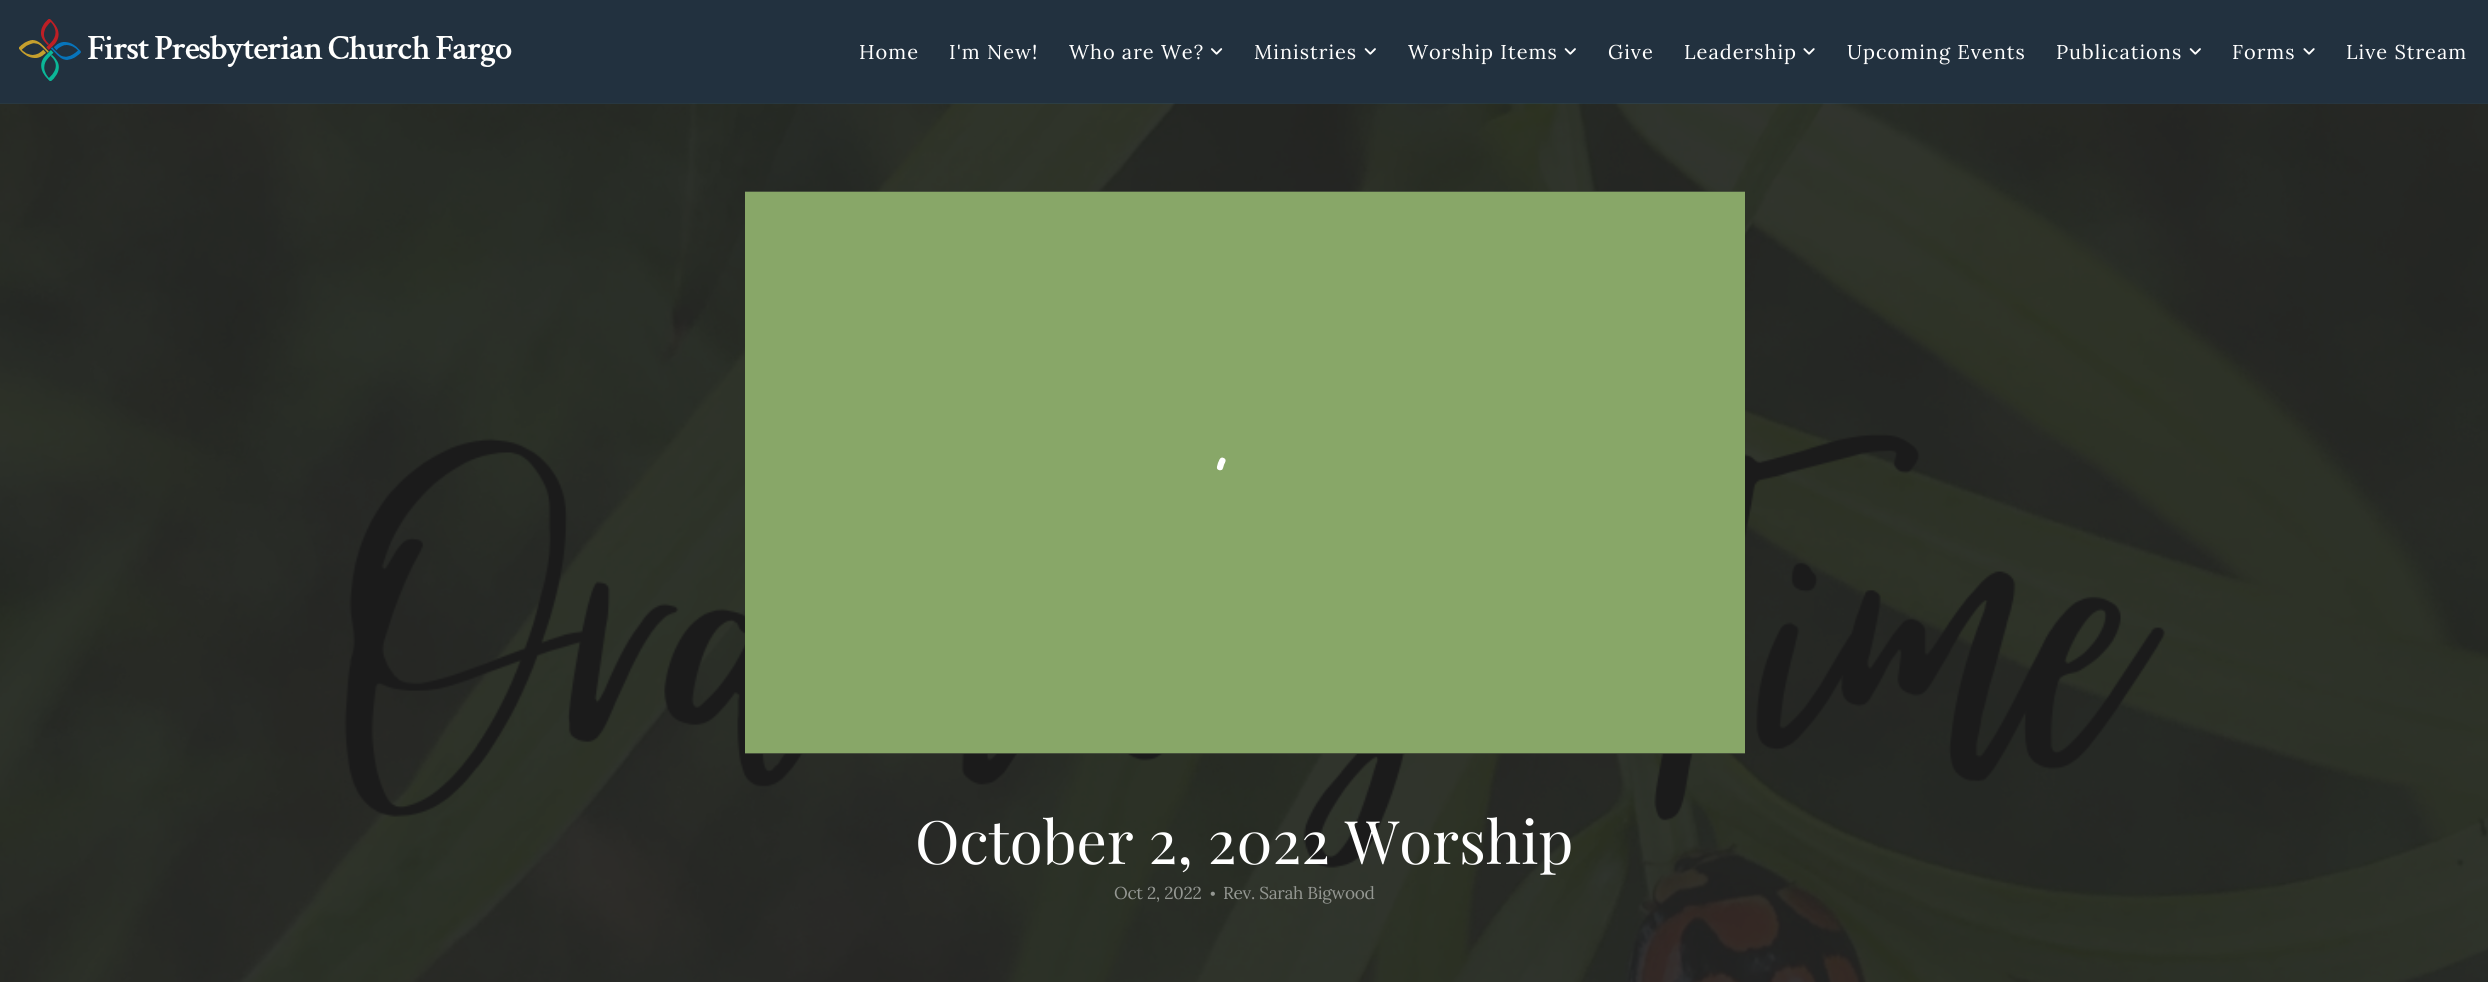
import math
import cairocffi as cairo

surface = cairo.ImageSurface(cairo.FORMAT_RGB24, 2488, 982)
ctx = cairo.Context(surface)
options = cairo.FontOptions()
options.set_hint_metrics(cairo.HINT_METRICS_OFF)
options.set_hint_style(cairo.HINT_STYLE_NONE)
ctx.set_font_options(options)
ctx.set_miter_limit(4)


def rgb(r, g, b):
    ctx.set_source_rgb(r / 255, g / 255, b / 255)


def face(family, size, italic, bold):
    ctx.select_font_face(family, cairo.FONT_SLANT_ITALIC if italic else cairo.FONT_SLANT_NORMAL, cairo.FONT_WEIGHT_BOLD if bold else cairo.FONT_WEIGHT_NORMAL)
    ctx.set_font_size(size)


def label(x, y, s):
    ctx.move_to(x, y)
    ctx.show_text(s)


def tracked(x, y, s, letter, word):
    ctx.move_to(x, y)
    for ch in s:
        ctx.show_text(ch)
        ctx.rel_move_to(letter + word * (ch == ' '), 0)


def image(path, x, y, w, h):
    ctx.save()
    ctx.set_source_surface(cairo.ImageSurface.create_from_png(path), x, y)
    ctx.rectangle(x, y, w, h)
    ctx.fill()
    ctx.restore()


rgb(34, 49, 63)
ctx.paint()
image('image0.png', 19, 19, 493, 62)
face('Lora', 20, 0, 0)
rgb(255, 255, 255)
tracked(859, 59, 'Home', 1, 0)
tracked(949, 59, 'I\'m New!', 1, 0)
tracked(1069, 59, 'Who are We?', 1, 0)
image('image1.png', 1211, 48, 12, 7)
tracked(1254, 59, 'Ministries', 1, 0)
image('image2.png', 1364, 48, 12, 7)
tracked(1408, 59, 'Worship Items', 1, 0)
image('image2.png', 1564, 48, 12, 7)
tracked(1608, 59, 'Give', 1, 0)
tracked(1684, 59, 'Leadership', 1, 0)
image('image3.png', 1803, 48, 12, 7)
tracked(1847, 59, 'Upcoming Events', 1, 0)
tracked(2056, 59, 'Publications', 1, 0)
image('image2.png', 2189, 48, 12, 7)
tracked(2232, 59, 'Forms', 1, 0)
image('image3.png', 2303, 48, 12, 7)
tracked(2346, 59, 'Live Stream', 1, 0)
image('image4.png', 0, 103, 2488, 879)
image('image5.png', 745, 191, 1000, 563)
face('Playfair Display', 60, 0, 0)
label(915, 864, 'October 2, 2022 Worship')
face('Lora', 17.25, 0, 0)
rgb(148, 151, 146)
tracked(1114, 899, 'Oct 2, 2022', -0.3, 0)
face('Lora', 14, 0, 0)
tracked(1210, 899, '•', -0.3, 0)
face('Lora', 17.25, 0, 0)
tracked(1223, 899, 'Rev. Sarah Bigwood', -0.3, 0)
surface.write_to_png('render.png')
